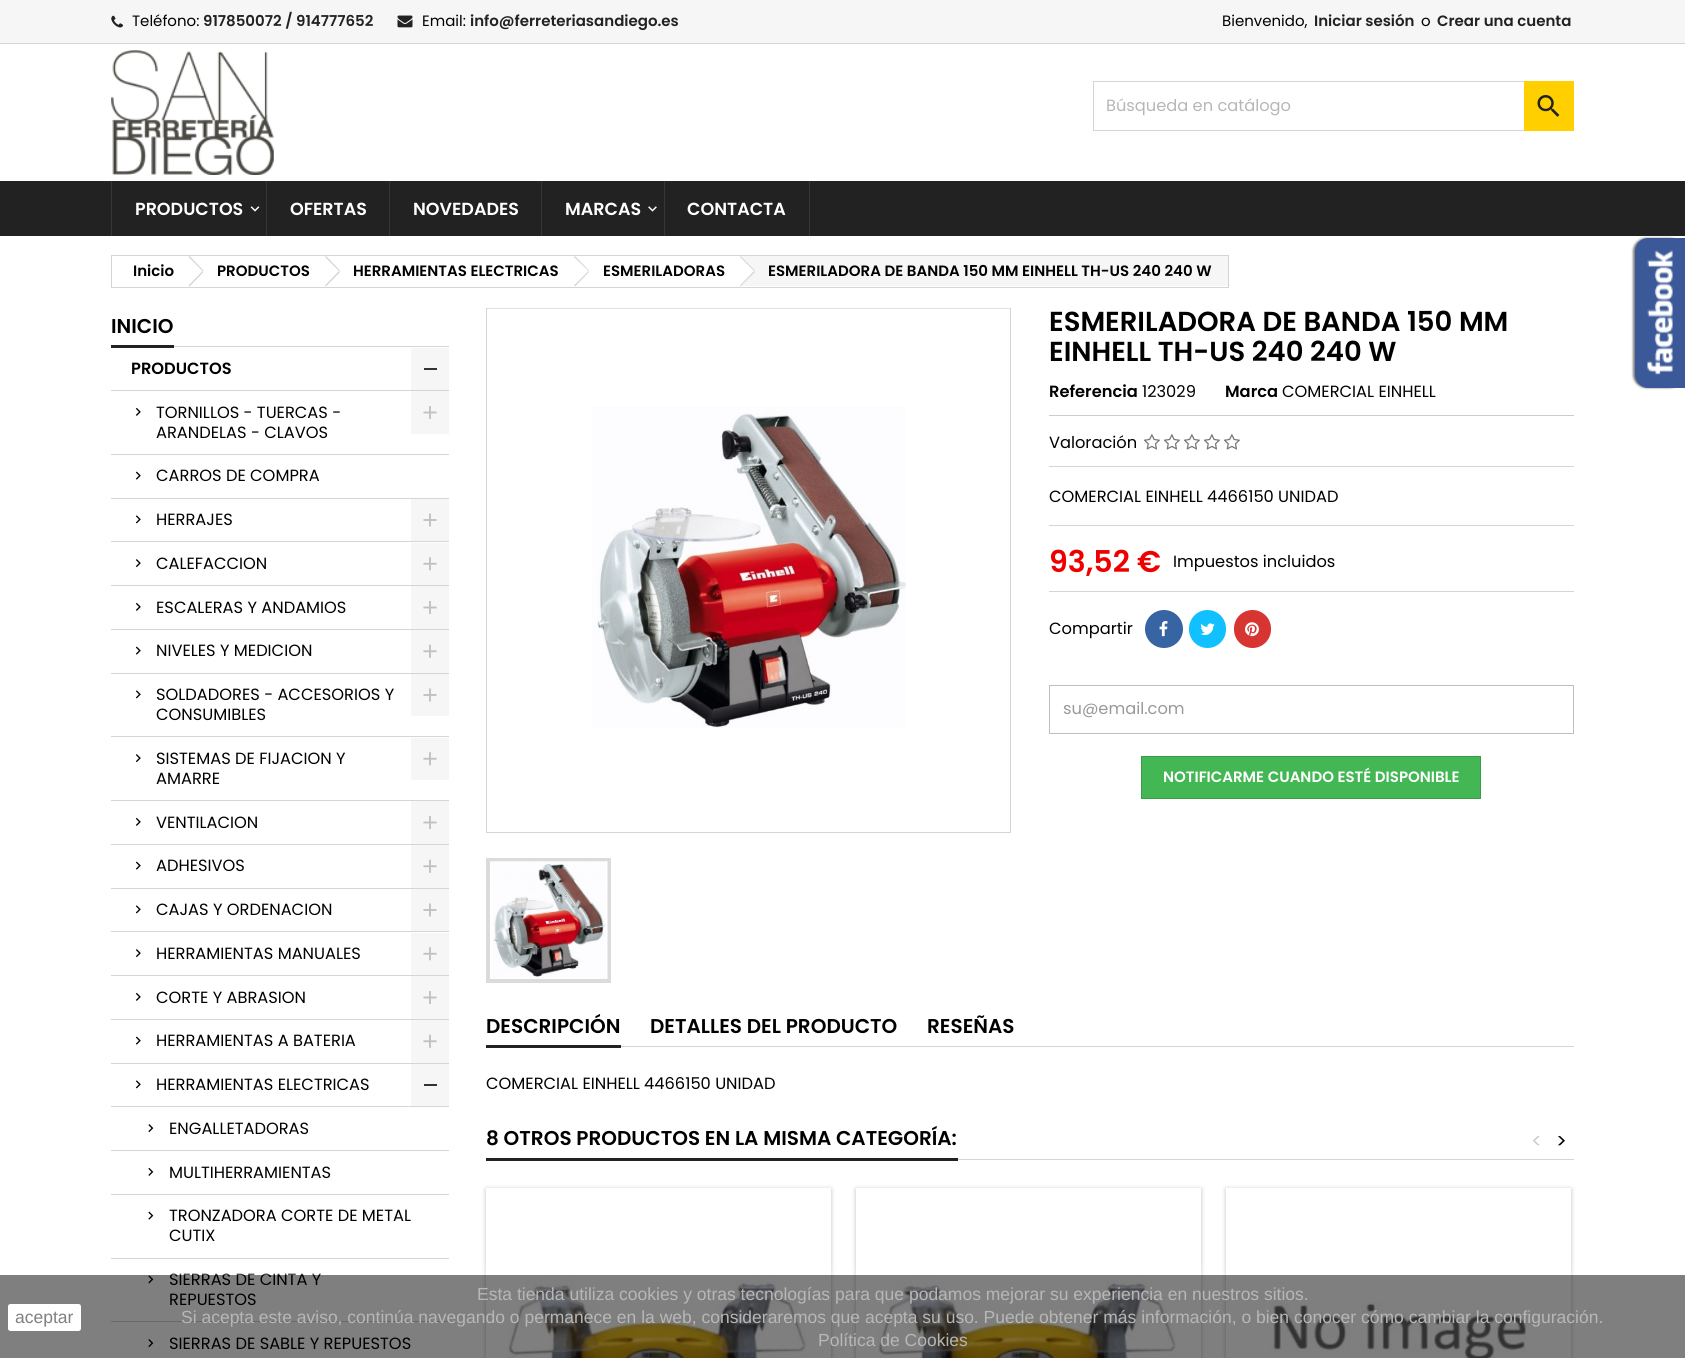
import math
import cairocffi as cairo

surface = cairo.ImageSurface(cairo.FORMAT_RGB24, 1685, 1358)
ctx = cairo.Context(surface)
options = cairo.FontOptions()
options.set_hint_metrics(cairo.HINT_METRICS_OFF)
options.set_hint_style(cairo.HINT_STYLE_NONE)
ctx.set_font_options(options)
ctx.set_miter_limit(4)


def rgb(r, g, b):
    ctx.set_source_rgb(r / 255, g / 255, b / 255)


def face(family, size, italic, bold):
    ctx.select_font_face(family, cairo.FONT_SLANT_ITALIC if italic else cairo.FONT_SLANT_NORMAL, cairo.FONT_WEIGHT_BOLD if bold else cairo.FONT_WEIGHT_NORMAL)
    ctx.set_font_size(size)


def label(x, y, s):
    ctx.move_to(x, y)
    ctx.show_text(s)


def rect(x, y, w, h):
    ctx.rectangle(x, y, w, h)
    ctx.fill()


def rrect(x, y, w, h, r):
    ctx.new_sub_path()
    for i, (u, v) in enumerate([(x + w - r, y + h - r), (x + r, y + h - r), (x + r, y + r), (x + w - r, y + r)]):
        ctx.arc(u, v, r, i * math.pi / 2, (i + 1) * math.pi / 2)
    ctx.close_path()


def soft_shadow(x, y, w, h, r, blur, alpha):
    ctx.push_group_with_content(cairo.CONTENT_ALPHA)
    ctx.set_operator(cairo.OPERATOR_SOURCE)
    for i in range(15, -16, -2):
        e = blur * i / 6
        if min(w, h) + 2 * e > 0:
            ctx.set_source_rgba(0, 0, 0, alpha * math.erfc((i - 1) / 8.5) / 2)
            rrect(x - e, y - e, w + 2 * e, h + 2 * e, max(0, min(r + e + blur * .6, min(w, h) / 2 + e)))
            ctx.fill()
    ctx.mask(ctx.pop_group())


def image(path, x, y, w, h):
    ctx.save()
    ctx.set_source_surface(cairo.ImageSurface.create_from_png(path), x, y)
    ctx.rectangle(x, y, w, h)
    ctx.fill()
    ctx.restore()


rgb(255, 255, 255)
ctx.paint()
rgb(246, 246, 246)
rect(0, 0, 1685, 43)
rgb(214, 212, 212)
rect(0, 43, 1685, 1)
image('image0.png', 111, 15, 12, 13)
face('Poppins', 15, 0, 0)
rgb(0, 0, 0)
label(132, 26, 'Teléfono:')
face('Poppins SemiBold', 15, 0, 0)
rgb(34, 34, 34)
label(203, 26, '917850072 / 914777652')
image('image1.png', 397, 15, 16, 13)
face('Poppins', 15, 0, 0)
rgb(0, 0, 0)
label(422, 26, 'Email:')
face('Poppins SemiBold', 15, 0, 0)
rgb(34, 34, 34)
label(470, 26, 'info@ferreteriasandiego.es')
face('Poppins', 15, 0, 0)
rgb(0, 0, 0)
label(1222, 26, 'Bienvenido,')
face('Poppins SemiBold', 15, 0, 0)
rgb(34, 34, 34)
label(1314, 26, 'Iniciar sesión')
face('Poppins', 15, 0, 0)
rgb(0, 0, 0)
label(1421, 26, 'o')
face('Poppins SemiBold', 15, 0, 0)
rgb(34, 34, 34)
label(1437, 26, 'Crear una cuenta')
image('image2.png', 111, 50, 163, 125)
ctx.rectangle(1093.5, 81.5, 480, 49)
rgb(214, 212, 212)
ctx.set_line_width(1)
ctx.stroke()
face('Poppins', 16.25, 0, 0)
rgb(183, 183, 183)
label(1106, 111, 'Búsqueda en catálogo')
rgb(255, 207, 0)
rect(1524, 81, 50, 50)
image('image3.png', 1537, 95, 23, 22)
rgb(34, 34, 34)
rect(0, 181, 1685, 55)
rgb(54, 54, 54)
rect(111, 181, 1, 55)
face('Poppins SemiBold', 17.5, 0, 0)
rgb(255, 255, 255)
label(135, 215, 'PRODUCTOS')
image('image4.png', 250, 206, 10, 6)
rgb(54, 54, 54)
rect(266, 181, 1, 55)
rgb(255, 255, 255)
label(290, 215, 'OFERTAS')
rgb(54, 54, 54)
rect(389, 181, 1, 55)
rgb(255, 255, 255)
label(413, 215, 'NOVEDADES')
rgb(54, 54, 54)
rect(541, 181, 1, 55)
rgb(255, 255, 255)
label(565, 215, 'MARCAS')
image('image5.png', 648, 206, 9, 6)
rgb(54, 54, 54)
rect(809, 181, 1, 55)
rect(664, 181, 1, 55)
rgb(255, 255, 255)
label(687, 215, 'CONTACTA')
ctx.rectangle(111.5, 255.5, 1117, 32)
rgb(214, 212, 212)
ctx.stroke()
face('Poppins SemiBold', 15, 0, 0)
rgb(0, 0, 0)
label(133, 276, 'Inicio')
rgb(214, 212, 212)
ctx.new_path()
ctx.move_to(189.5, 256)
ctx.line_to(203.5, 270.5)
ctx.line_to(202.5, 271)
ctx.line_to(188.5, 257)
ctx.close_path()
ctx.move_to(202.5, 271)
ctx.line_to(203.5, 272)
ctx.line_to(189.5, 286.5)
ctx.line_to(188.5, 285.5)
ctx.close_path()
ctx.fill()
rgb(0, 0, 0)
label(217, 276, 'PRODUCTOS')
rgb(214, 212, 212)
ctx.new_path()
ctx.move_to(326, 256)
ctx.line_to(340, 270.5)
ctx.line_to(339, 271)
ctx.line_to(325, 257)
ctx.close_path()
ctx.move_to(339, 271)
ctx.line_to(340, 272)
ctx.line_to(326, 286.5)
ctx.line_to(325, 285.5)
ctx.close_path()
ctx.fill()
rgb(0, 0, 0)
label(353, 276, 'HERRAMIENTAS ELECTRICAS')
rgb(214, 212, 212)
ctx.new_path()
ctx.move_to(575, 256)
ctx.line_to(589, 270.5)
ctx.line_to(588.5, 271)
ctx.line_to(574, 257)
ctx.close_path()
ctx.move_to(588.5, 271)
ctx.line_to(589, 272)
ctx.line_to(575, 286.5)
ctx.line_to(574, 285.5)
ctx.close_path()
ctx.fill()
rgb(0, 0, 0)
label(603, 276, 'ESMERILADORAS')
rgb(246, 246, 246)
rect(741, 256, 487, 30)
rgb(255, 255, 255)
ctx.new_path()
ctx.move_to(741.5, 257)
ctx.line_to(754, 269.5)
ctx.curve_to(755, 270.5, 755, 272, 754, 273)
ctx.line_to(741.5, 285.5)
ctx.curve_to(740.5, 286.5, 739, 286.5, 738, 285.5)
ctx.line_to(725.5, 273)
ctx.curve_to(724.5, 272, 724.5, 270.5, 725.5, 269.5)
ctx.line_to(738, 257)
ctx.curve_to(739, 256, 740.5, 256, 741.5, 257)
ctx.close_path()
ctx.fill()
rgb(214, 212, 212)
ctx.new_path()
ctx.move_to(740.5, 256)
ctx.line_to(755, 270.5)
ctx.line_to(754, 271)
ctx.line_to(740, 257)
ctx.close_path()
ctx.move_to(754, 271)
ctx.line_to(755, 272)
ctx.line_to(740.5, 286.5)
ctx.line_to(740, 285.5)
ctx.close_path()
ctx.fill()
rgb(0, 0, 0)
label(768, 276, 'ESMERILADORA DE BANDA 150 MM EINHELL TH-US 240 240 W')
rgb(214, 212, 212)
rect(174, 346, 275, 1)
rgb(34, 34, 34)
rect(111, 345, 63, 3)
face('Poppins SemiBold', 20, 0, 0)
rgb(0, 0, 0)
label(111, 333, 'INICIO')
rgb(214, 212, 212)
rect(111, 390, 338, 1)
face('Poppins SemiBold', 16.25, 0, 0)
rgb(0, 0, 0)
label(131, 374, 'PRODUCTOS')
rgb(246, 246, 246)
rect(411, 348, 38, 42)
rgb(51, 51, 51)
rect(424, 368, 13, 2)
rgb(214, 212, 212)
rect(111, 454, 338, 1)
image('image6.png', 135, 407, 6, 9)
face('Poppins', 16.25, 0, 0)
rgb(0, 0, 0)
label(156, 418, 'TORNILLOS - TUERCAS -')
label(156, 438, 'ARANDELAS - CLAVOS')
rgb(246, 246, 246)
rect(411, 391, 38, 43)
image('image7.png', 423, 406, 14, 13)
rgb(214, 212, 212)
rect(111, 498, 338, 1)
image('image8.png', 135, 471, 6, 9)
rgb(0, 0, 0)
label(156, 481, 'CARROS DE COMPRA')
rgb(214, 212, 212)
rect(111, 541, 338, 1)
image('image9.png', 135, 515, 6, 9)
rgb(0, 0, 0)
label(156, 525, 'HERRAJES')
rgb(246, 246, 246)
rect(411, 499, 38, 42)
image('image10.png', 423, 513, 14, 14)
rgb(214, 212, 212)
rect(111, 585, 338, 1)
image('image11.png', 135, 559, 6, 9)
rgb(0, 0, 0)
label(156, 569, 'CALEFACCION')
rgb(246, 246, 246)
rect(411, 543, 38, 42)
image('image12.png', 423, 557, 14, 14)
rgb(214, 212, 212)
rect(111, 629, 338, 1)
image('image6.png', 135, 602, 6, 9)
rgb(0, 0, 0)
label(156, 613, 'ESCALERAS Y ANDAMIOS')
rgb(246, 246, 246)
rect(411, 586, 38, 43)
image('image7.png', 423, 601, 14, 13)
rgb(214, 212, 212)
rect(111, 673, 338, 1)
image('image8.png', 135, 646, 6, 9)
rgb(0, 0, 0)
label(156, 656, 'NIVELES Y MEDICION')
rgb(246, 246, 246)
rect(411, 630, 38, 43)
image('image13.png', 423, 644, 14, 14)
rgb(214, 212, 212)
rect(111, 736, 338, 1)
image('image9.png', 135, 690, 6, 9)
rgb(0, 0, 0)
label(156, 700, 'SOLDADORES - ACCESORIOS Y')
label(156, 720, 'CONSUMIBLES')
rgb(246, 246, 246)
rect(411, 674, 38, 42)
image('image10.png', 423, 688, 14, 14)
rgb(214, 212, 212)
rect(111, 800, 338, 1)
image('image11.png', 135, 754, 6, 9)
rgb(0, 0, 0)
label(156, 764, 'SISTEMAS DE FIJACION Y')
label(156, 784, 'AMARRE')
rgb(246, 246, 246)
rect(411, 738, 38, 42)
image('image12.png', 423, 752, 14, 14)
rgb(214, 212, 212)
rect(111, 844, 338, 1)
image('image6.png', 135, 817, 6, 9)
rgb(0, 0, 0)
label(156, 828, 'VENTILACION')
rgb(246, 246, 246)
rect(411, 801, 38, 43)
image('image7.png', 423, 816, 14, 13)
rgb(214, 212, 212)
rect(111, 888, 338, 1)
image('image8.png', 135, 861, 6, 9)
rgb(0, 0, 0)
label(156, 871, 'ADHESIVOS')
rgb(246, 246, 246)
rect(411, 845, 38, 43)
image('image13.png', 423, 859, 14, 14)
rgb(214, 212, 212)
rect(111, 931, 338, 1)
image('image9.png', 135, 905, 6, 9)
rgb(0, 0, 0)
label(156, 915, 'CAJAS Y ORDENACION')
rgb(246, 246, 246)
rect(411, 889, 38, 42)
image('image10.png', 423, 903, 14, 14)
rgb(214, 212, 212)
rect(111, 975, 338, 1)
image('image11.png', 135, 949, 6, 9)
rgb(0, 0, 0)
label(156, 959, 'HERRAMIENTAS MANUALES')
rgb(246, 246, 246)
rect(411, 933, 38, 42)
image('image12.png', 423, 947, 14, 14)
rgb(214, 212, 212)
rect(111, 1019, 338, 1)
image('image6.png', 135, 992, 6, 9)
rgb(0, 0, 0)
label(156, 1003, 'CORTE Y ABRASION')
rgb(246, 246, 246)
rect(411, 976, 38, 43)
image('image7.png', 423, 991, 14, 13)
rgb(214, 212, 212)
rect(111, 1063, 338, 1)
image('image8.png', 135, 1036, 6, 9)
rgb(0, 0, 0)
label(156, 1046, 'HERRAMIENTAS A BATERIA')
rgb(246, 246, 246)
rect(411, 1020, 38, 43)
image('image13.png', 423, 1034, 14, 14)
rgb(214, 212, 212)
rect(111, 1106, 338, 1)
image('image9.png', 135, 1080, 6, 9)
rgb(0, 0, 0)
label(156, 1090, 'HERRAMIENTAS ELECTRICAS')
rgb(246, 246, 246)
rect(411, 1064, 38, 42)
rgb(51, 51, 51)
rect(424, 1084, 13, 2)
rgb(214, 212, 212)
rect(111, 1150, 338, 1)
image('image14.png', 148, 1124, 6, 9)
rgb(0, 0, 0)
label(169, 1134, 'ENGALLETADORAS')
rgb(214, 212, 212)
rect(111, 1194, 338, 1)
image('image15.png', 148, 1167, 6, 9)
rgb(0, 0, 0)
label(169, 1178, 'MULTIHERRAMIENTAS')
rgb(214, 212, 212)
rect(111, 1258, 338, 1)
image('image16.png', 148, 1211, 6, 9)
rgb(0, 0, 0)
label(169, 1221, 'TRONZADORA CORTE DE METAL')
label(169, 1241, 'CUTIX')
rgb(214, 212, 212)
rect(111, 1321, 338, 1)
image('image17.png', 148, 1275, 6, 9)
rgb(0, 0, 0)
label(169, 1285, 'SIERRAS DE CINTA Y')
label(169, 1305, 'REPUESTOS')
image('image14.png', 148, 1339, 6, 9)
label(169, 1349, 'SIERRAS DE SABLE Y REPUESTOS')
ctx.rectangle(486.5, 308.5, 524, 524)
rgb(214, 212, 212)
ctx.stroke()
image('image18.png', 487, 308, 523, 420)
ctx.rectangle(488, 860, 121, 121)
rgb(219, 219, 219)
ctx.set_line_width(4)
ctx.stroke()
image('image19.png', 490, 861, 118, 118)
face('Poppins SemiBold', 27.5, 0, 0)
rgb(0, 0, 0)
label(1049, 331, 'ESMERILADORA DE BANDA 150 MM')
label(1049, 361, 'EINHELL TH-US 240 240 W')
face('Poppins SemiBold', 16.25, 0, 0)
label(1049, 397, 'Referencia')
face('Poppins', 16.25, 0, 0)
label(1142, 397, '123029')
face('Poppins SemiBold', 16.25, 0, 0)
label(1225, 397, 'Marca')
face('Poppins', 16.25, 0, 0)
label(1282, 397, 'COMERCIAL EINHELL')
rgb(204, 204, 204)
rect(1049, 415, 525, 1)
rgb(0, 0, 0)
label(1049, 448, 'Valoración')
image('image20.png', 1144, 434, 16, 16)
image('image20.png', 1164, 434, 16, 16)
image('image20.png', 1184, 434, 16, 16)
image('image20.png', 1204, 434, 16, 16)
image('image20.png', 1224, 434, 16, 16)
rgb(214, 212, 212)
rect(1049, 466, 525, 1)
rgb(0, 0, 0)
label(1049, 502, 'COMERCIAL EINHELL 4466150 UNIDAD')
rgb(214, 212, 212)
rect(1049, 525, 525, 1)
face('Poppins SemiBold', 30, 0, 0)
rgb(238, 0, 0)
label(1049, 572, '93,52 €')
face('Poppins', 16.25, 0, 0)
rgb(0, 0, 0)
label(1173, 567, 'Impuestos incluidos')
rgb(214, 212, 212)
rect(1049, 591, 525, 1)
rgb(0, 0, 0)
label(1049, 634, 'Compartir')
rgb(55, 101, 163)
ctx.new_path()
ctx.arc(1164, 629, 19, 0, 2 * math.pi)
ctx.fill()
image('image21.png', 1159, 621, 9, 16)
rgb(17, 193, 255)
rrect(1189, 610, 37, 38, 18.5)
ctx.fill()
image('image22.png', 1200, 623, 15, 12)
rgb(215, 53, 50)
rrect(1234, 610, 37, 38, 18.5)
ctx.fill()
image('image23.png', 1245, 622, 14, 15)
ctx.rectangle(1049.5, 685.5, 524, 48)
rgb(191, 191, 191)
ctx.set_line_width(1)
ctx.stroke()
rgb(153, 153, 153)
label(1063, 714, 'su@email.com')
rgb(67, 183, 84)
ctx.rectangle(1141.5, 756.5, 339, 42)
ctx.fill_preserve()
rgb(57, 154, 73)
ctx.stroke()
face('Poppins SemiBold', 15, 0, 0)
rgb(255, 255, 255)
label(1163, 782, 'NOTIFICARME CUANDO ESTÉ DISPONIBLE')
rgb(214, 212, 212)
rect(621, 1046, 953, 1)
rgb(34, 34, 34)
rect(486, 1045, 135, 3)
face('Poppins SemiBold', 20, 0, 0)
rgb(0, 0, 0)
label(486, 1033, 'DESCRIPCIÓN')
label(650, 1033, 'DETALLES DEL PRODUCTO')
label(927, 1033, 'RESEÑAS')
face('Poppins', 16.25, 0, 0)
label(486, 1089, 'COMERCIAL EINHELL 4466150 UNIDAD')
rgb(214, 212, 212)
rect(958, 1159, 616, 1)
rgb(34, 34, 34)
rect(486, 1158, 472, 3)
face('Poppins SemiBold', 20, 0, 0)
rgb(0, 0, 0)
label(486, 1145, '8 OTROS PRODUCTOS EN LA MISMA CATEGORÍA:')
face('Poppins', 20, 0, 0)
rgb(204, 204, 204)
label(1531, 1148, '<')
rgb(0, 0, 0)
label(1556, 1148, '>')
rgb(0, 0, 0)
soft_shadow(486, 1189, 345, 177, 0, 2.5, 0.24)
rgb(255, 255, 255)
rect(486, 1188, 345, 170)
image('image24.png', 508, 1278, 298, 80)
rgb(0, 0, 0)
soft_shadow(856, 1189, 345, 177, 0, 2.5, 0.24)
rgb(255, 255, 255)
rect(856, 1188, 345, 170)
image('image25.png', 878, 1278, 298, 80)
rgb(0, 0, 0)
soft_shadow(1226, 1189, 345, 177, 0, 2.5, 0.24)
rgb(255, 255, 255)
rect(1226, 1188, 345, 170)
image('image26.png', 1270, 1302, 257, 56)
rgb(0, 0, 0)
soft_shadow(1633, 238, 50, 150, 13, 1, 0.5)
rgb(59, 89, 152)
ctx.new_path()
ctx.move_to(1648, 238)
ctx.line_to(1685, 238)
ctx.line_to(1685, 388)
ctx.line_to(1648, 388)
ctx.curve_to(1641, 388, 1635, 382, 1635, 375)
ctx.line_to(1635, 251)
ctx.curve_to(1635, 244, 1641, 238, 1648, 238)
ctx.close_path()
ctx.fill()
image('image27.png', 1647, 250, 26, 125)
ctx.save()
ctx.rectangle(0, 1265, 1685, 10)
ctx.clip()
rgb(255, 255, 255)
soft_shadow(0, 1275, 1685, 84, 0, 6, 0.5)
ctx.restore()
ctx.set_source_rgba(0, 0, 0, 0.5)
rect(0, 1275, 1685, 83)
rgb(255, 255, 255)
rrect(8, 1304, 73, 27, 2.5)
ctx.fill()
face('Liberation Sans', 17.5, 0, 0)
rgb(128, 128, 128)
label(15, 1323, 'aceptar')
rgb(183, 183, 183)
label(477, 1300, 'Esta tienda utiliza cookies y otras tecnologías para que podamos mejorar su experiencia en nuestros sitios.')
label(181, 1323, 'Si acepta este aviso, continúa navegando o permanece en la web, consideraremos que acepta su uso. Puede obtener más información, o bien conocer cómo cambiar la configuración.')
label(818, 1346, 'Política de Cookies')
surface.write_to_png('render.png')
